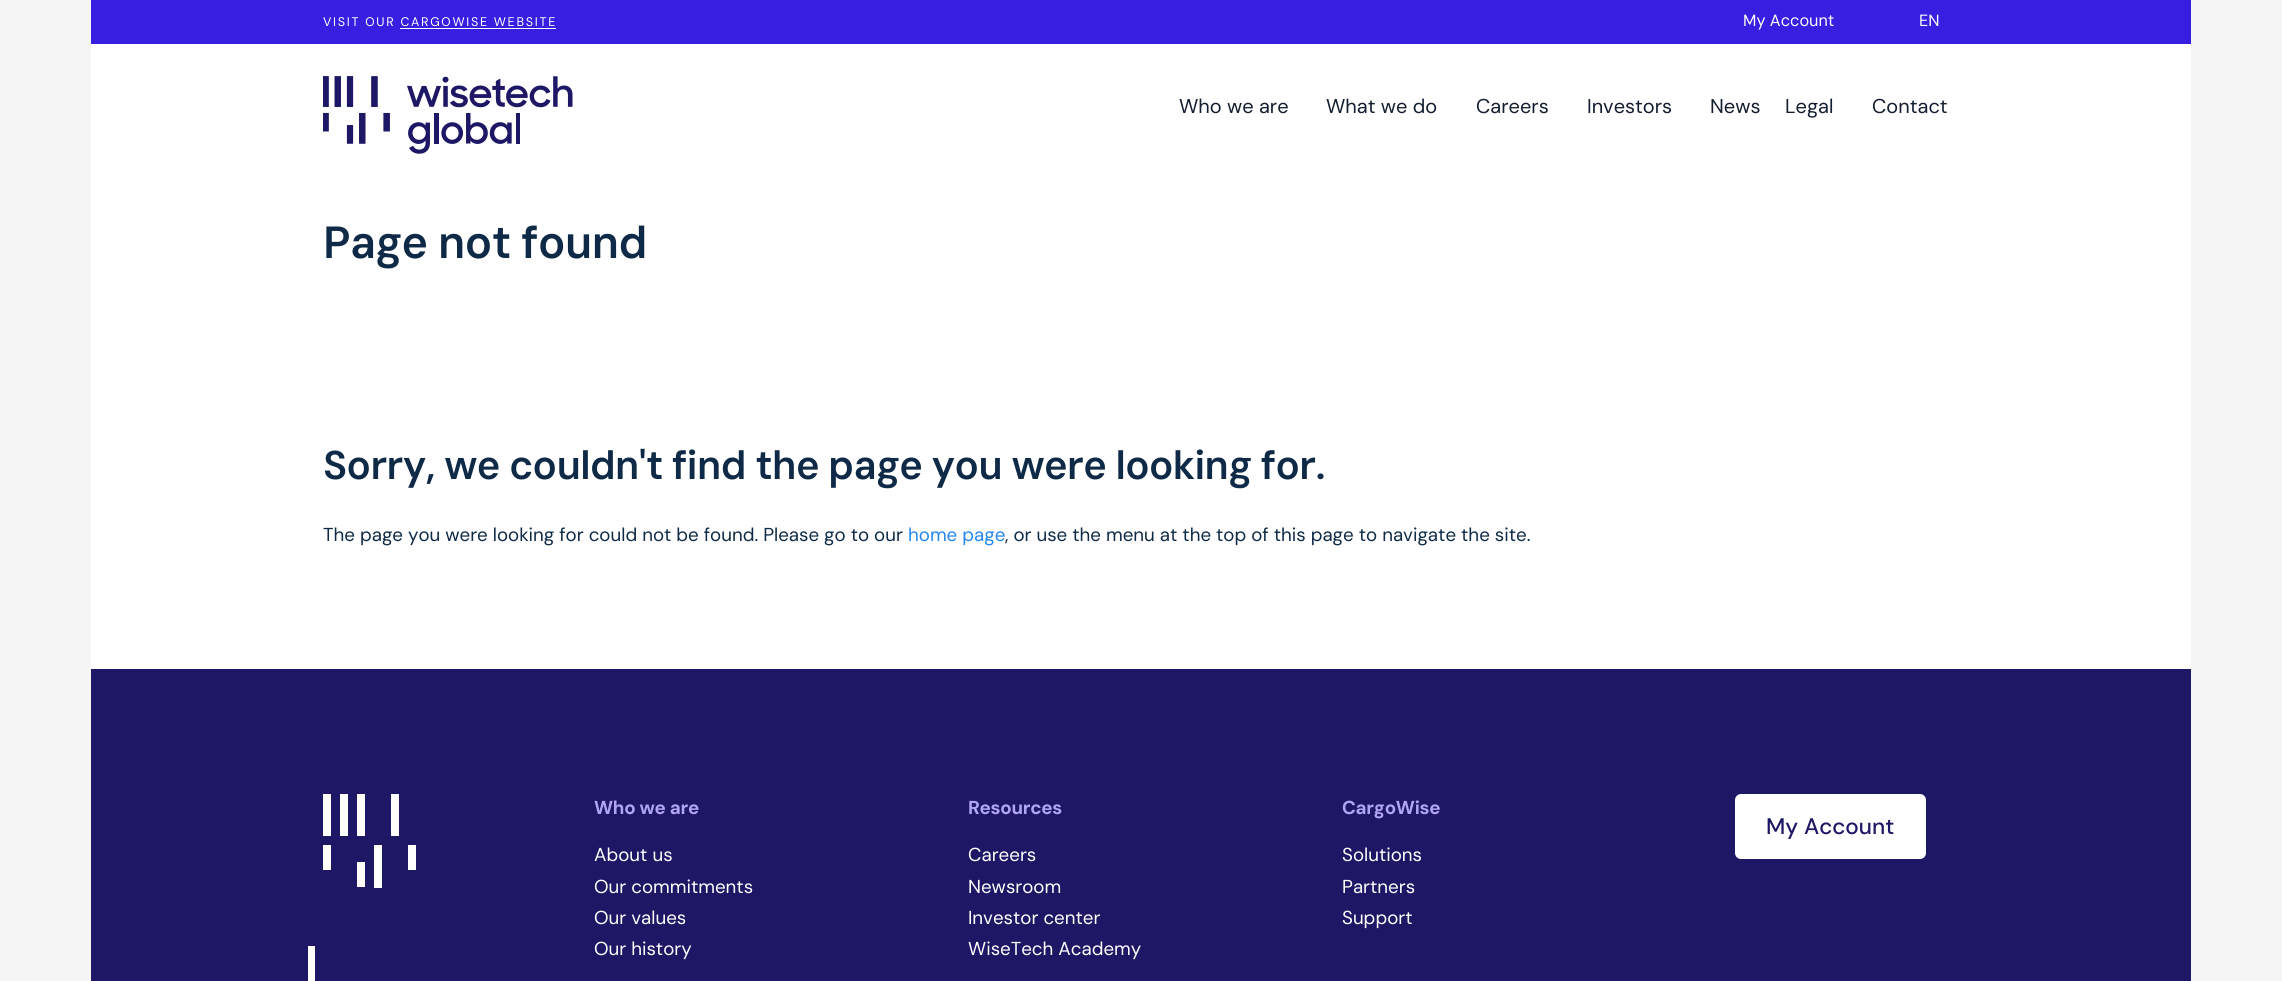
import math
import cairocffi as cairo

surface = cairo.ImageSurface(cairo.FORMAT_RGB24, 2282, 981)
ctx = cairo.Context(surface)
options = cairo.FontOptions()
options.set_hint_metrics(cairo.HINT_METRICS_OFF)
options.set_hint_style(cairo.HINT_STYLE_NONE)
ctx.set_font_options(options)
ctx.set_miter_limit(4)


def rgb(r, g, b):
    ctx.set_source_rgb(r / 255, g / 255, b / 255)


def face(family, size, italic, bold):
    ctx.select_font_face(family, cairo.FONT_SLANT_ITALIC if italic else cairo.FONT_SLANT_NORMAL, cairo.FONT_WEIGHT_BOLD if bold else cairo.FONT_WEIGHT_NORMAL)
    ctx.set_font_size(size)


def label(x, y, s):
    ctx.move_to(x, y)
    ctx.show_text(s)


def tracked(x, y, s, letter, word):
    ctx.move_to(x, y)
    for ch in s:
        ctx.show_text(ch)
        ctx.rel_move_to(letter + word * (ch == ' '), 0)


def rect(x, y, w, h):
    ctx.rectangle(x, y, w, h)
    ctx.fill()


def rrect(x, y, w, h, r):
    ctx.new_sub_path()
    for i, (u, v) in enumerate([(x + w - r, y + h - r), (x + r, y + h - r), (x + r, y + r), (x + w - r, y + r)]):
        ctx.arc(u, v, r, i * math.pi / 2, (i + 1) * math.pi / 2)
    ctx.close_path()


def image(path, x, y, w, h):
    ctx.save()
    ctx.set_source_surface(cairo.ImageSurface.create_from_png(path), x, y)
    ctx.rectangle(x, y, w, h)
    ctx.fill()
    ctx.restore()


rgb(245, 245, 245)
ctx.paint()
rgb(55, 30, 225)
rect(91, 0, 2100, 44)
face('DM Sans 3', 12.5, 0, 0)
rgb(255, 255, 255)
tracked(323, 26, 'VISIT OUR CARGOWISE WEBSITE', 1.7, 0)
rect(400, 28, 156, 1)
rect(91, 44, 2100, 625)
image('image0.png', 323, 76, 250, 78)
face('DM Sans 3', 16.25, 0, 0)
label(1743, 26, 'My Account')
label(1919, 26, 'EN')
face('DM Sans', 20, 0, 0)
rgb(20, 30, 48)
label(1179, 113, 'Who we are')
label(1326, 113, 'What we do')
label(1476, 113, 'Careers')
label(1587, 113, 'Investors')
label(1710, 113, 'News')
label(1785, 113, 'Legal')
label(1872, 113, 'Contact')
face('DM Sans SemiBold', 45, 0, 0)
rgb(15, 42, 70)
tracked(323, 258, 'Page not found', -0.62, 0)
face('DM Sans SemiBold', 40, 0, 0)
tracked(323, 479, 'Sorry, we couldn\'t find the page you were looking for.', -0.62, 0)
face('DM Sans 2', 18.75, 0, 0)
label(323, 541, 'The page you were looking for could not be found. Please go to our')
rgb(35, 135, 238)
label(908, 541, 'home page')
rgb(15, 42, 70)
label(1005, 541, ', or use the menu at the top of this page to navigate the site.')
rgb(29, 23, 101)
rect(91, 669, 2100, 312)
ctx.save()
ctx.rectangle(323, 794, 93, 94)
ctx.clip()
rgb(255, 255, 255)
ctx.set_fill_rule(cairo.FILL_RULE_EVEN_ODD)
ctx.new_path()
ctx.move_to(331, 845)
ctx.line_to(331, 870)
ctx.line_to(322, 870)
ctx.line_to(322, 845)
ctx.close_path()
ctx.move_to(357, 887)
ctx.line_to(357, 862)
ctx.line_to(365, 862)
ctx.line_to(365, 887)
ctx.close_path()
ctx.move_to(416, 870)
ctx.line_to(416, 845)
ctx.line_to(408, 845)
ctx.line_to(408, 870)
ctx.close_path()
ctx.move_to(331, 836)
ctx.line_to(322, 836)
ctx.line_to(322, 794)
ctx.line_to(331, 794)
ctx.close_path()
ctx.move_to(348, 836)
ctx.line_to(348, 794)
ctx.line_to(340, 794)
ctx.line_to(340, 836)
ctx.close_path()
ctx.move_to(365, 794)
ctx.line_to(365, 836)
ctx.line_to(357, 836)
ctx.line_to(357, 794)
ctx.close_path()
ctx.move_to(374, 845)
ctx.line_to(374, 888)
ctx.line_to(382, 888)
ctx.line_to(382, 845)
ctx.close_path()
ctx.move_to(399, 794)
ctx.line_to(399, 836)
ctx.line_to(391, 836)
ctx.line_to(391, 794)
ctx.close_path()
ctx.fill()
ctx.restore()
face('DM Sans', 18.75, 0, 1)
rgb(175, 165, 243)
tracked(594, 814, 'Who we are', -0.25, 0)
face('DM Sans 2', 18.75, 0, 0)
rgb(255, 255, 255)
label(594, 861, 'About us')
label(594, 893, 'Our commitments')
label(594, 924, 'Our values')
label(594, 955, 'Our history')
face('DM Sans', 18.75, 0, 1)
rgb(175, 165, 243)
tracked(968, 814, 'Resources', -0.25, 0)
face('DM Sans 2', 18.75, 0, 0)
rgb(255, 255, 255)
label(968, 861, 'Careers')
label(968, 893, 'Newsroom')
label(968, 924, 'Investor center')
label(968, 955, 'WiseTech Academy')
face('DM Sans', 18.75, 0, 1)
rgb(175, 165, 243)
tracked(1342, 814, 'CargoWise', -0.25, 0)
face('DM Sans 2', 18.75, 0, 0)
rgb(255, 255, 255)
label(1342, 861, 'Solutions')
label(1342, 893, 'Partners')
label(1342, 924, 'Support')
rrect(1735, 794, 191, 65, 6)
ctx.fill()
face('DM Sans Medium', 22.5, 0, 0)
rgb(29, 23, 101)
label(1766, 834, 'My Account')
rgb(255, 255, 255)
rect(308, 946, 7, 35)
surface.write_to_png('render.png')
